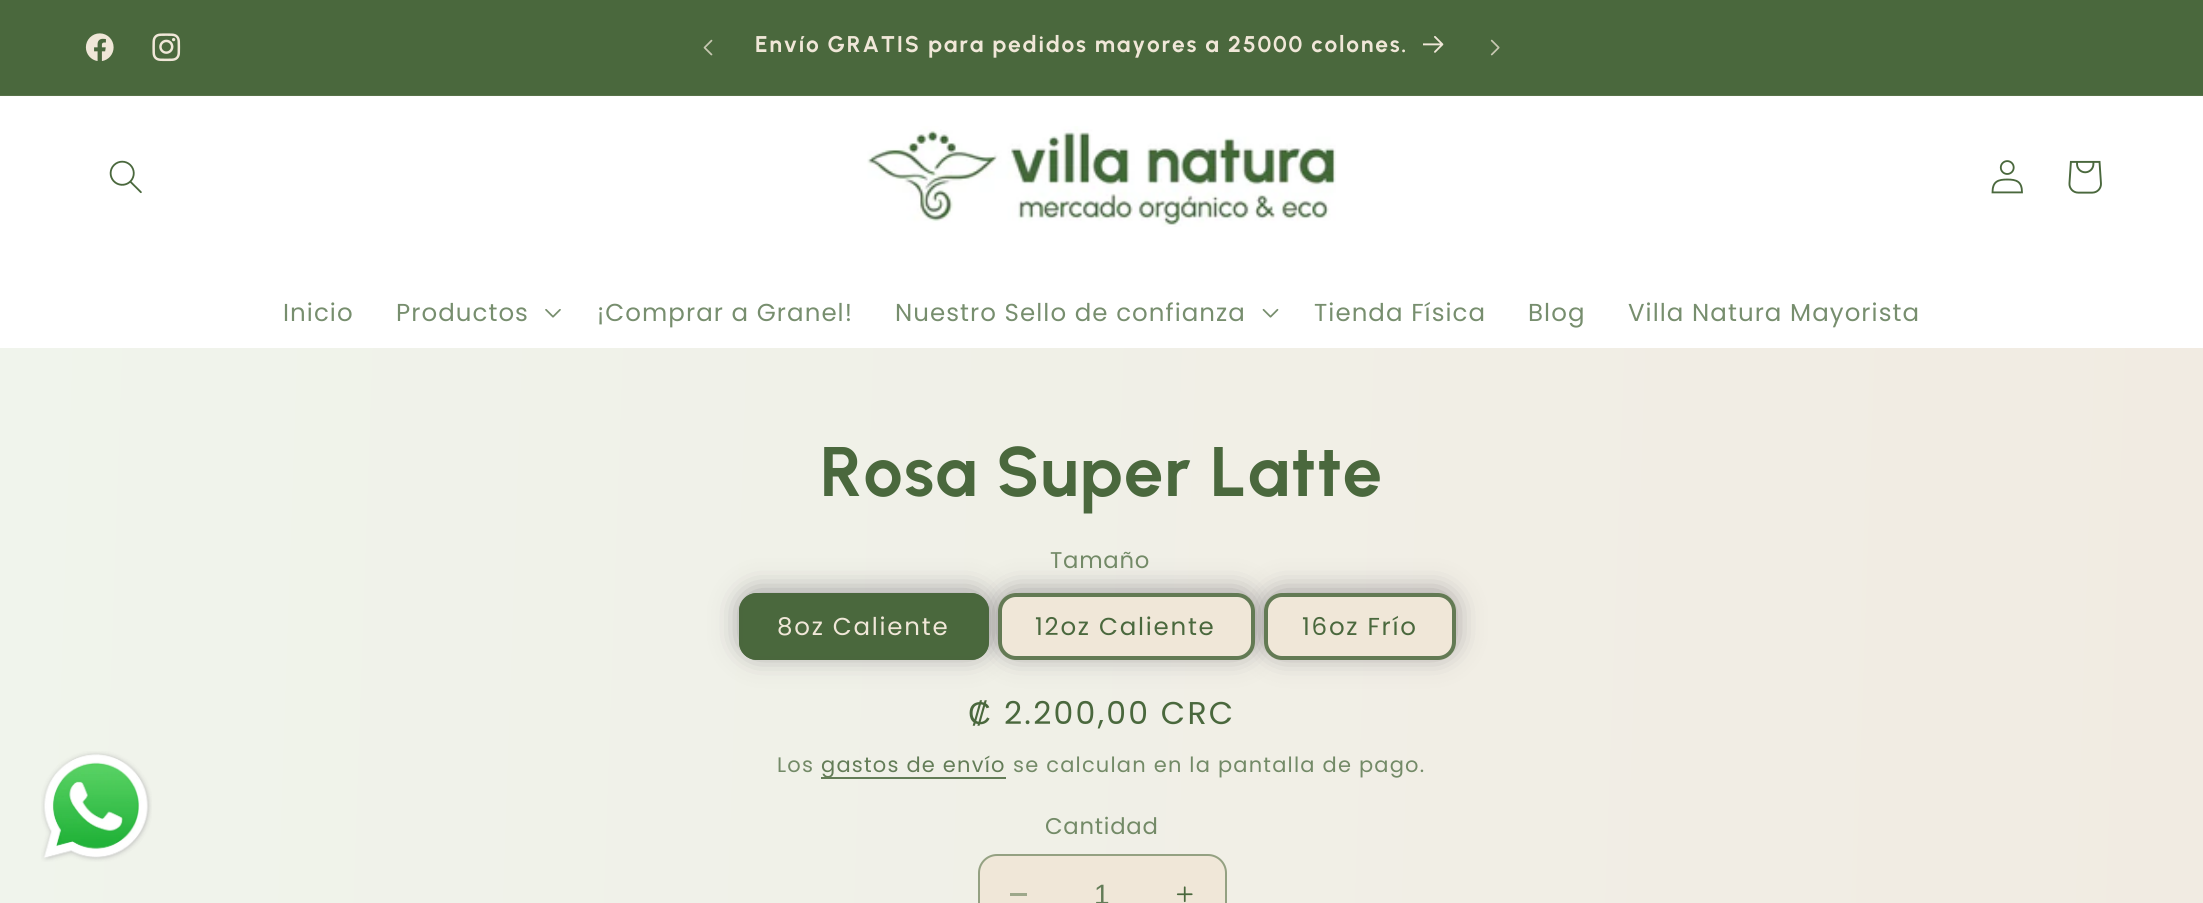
import math
import cairocffi as cairo

surface = cairo.ImageSurface(cairo.FORMAT_RGB24, 2203, 903)
ctx = cairo.Context(surface)
options = cairo.FontOptions()
options.set_hint_metrics(cairo.HINT_METRICS_OFF)
options.set_hint_style(cairo.HINT_STYLE_NONE)
ctx.set_font_options(options)
ctx.set_miter_limit(4)


def rgb(r, g, b):
    ctx.set_source_rgb(r / 255, g / 255, b / 255)


def face(family, size, italic, bold):
    ctx.select_font_face(family, cairo.FONT_SLANT_ITALIC if italic else cairo.FONT_SLANT_NORMAL, cairo.FONT_WEIGHT_BOLD if bold else cairo.FONT_WEIGHT_NORMAL)
    ctx.set_font_size(size)


def label(x, y, s):
    ctx.move_to(x, y)
    ctx.show_text(s)


def tracked(x, y, s, letter, word):
    ctx.move_to(x, y)
    for ch in s:
        ctx.show_text(ch)
        ctx.rel_move_to(letter + word * (ch == ' '), 0)


def rect(x, y, w, h):
    ctx.rectangle(x, y, w, h)
    ctx.fill()


def rrect(x, y, w, h, r):
    ctx.new_sub_path()
    for i, (u, v) in enumerate([(x + w - r, y + h - r), (x + r, y + h - r), (x + r, y + r), (x + w - r, y + r)]):
        ctx.arc(u, v, r, i * math.pi / 2, (i + 1) * math.pi / 2)
    ctx.close_path()


def soft_shadow(x, y, w, h, r, blur, alpha):
    ctx.push_group_with_content(cairo.CONTENT_ALPHA)
    ctx.set_operator(cairo.OPERATOR_SOURCE)
    for i in range(15, -16, -2):
        e = blur * i / 6
        if min(w, h) + 2 * e > 0:
            ctx.set_source_rgba(0, 0, 0, alpha * math.erfc((i - 1) / 8.5) / 2)
            rrect(x - e, y - e, w + 2 * e, h + 2 * e, max(0, min(r + e + blur * .6, min(w, h) / 2 + e)))
            ctx.fill()
    ctx.mask(ctx.pop_group())


def image(path, x, y, w, h):
    ctx.save()
    ctx.set_source_surface(cairo.ImageSurface.create_from_png(path), x, y)
    ctx.rectangle(x, y, w, h)
    ctx.fill()
    ctx.restore()


rgb(255, 255, 255)
ctx.paint()
gradient = cairo.LinearGradient(-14, 413, 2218, 490)
gradient.add_color_stop_rgba(0, 0.941, 0.957, 0.925, 1)
gradient.add_color_stop_rgba(1, 0.945, 0.922, 0.886, 1)
ctx.set_source(gradient)
rect(0, 348, 2203, 555)
rgb(74, 104, 61)
rect(0, 0, 2203, 95)
rgb(87, 114, 73)
rect(0, 95, 2203, 1)
image('image0.png', 85, 33, 29, 28)
image('image1.png', 152, 33, 29, 29)
image('image2.png', 703, 39, 10, 17)
face('Urbanist', 22.75, 0, 1)
rgb(240, 231, 216)
tracked(755, 52, 'Envío GRATIS para pedidos mayores a 25000 colones.', 1.75, 0)
image('image3.png', 1423, 36, 21, 17)
image('image4.png', 1490, 39, 10, 17)
rgb(254, 253, 252)
rect(0, 96, 2203, 1)
image('image5.png', 109, 160, 33, 34)
image('image6.png', 867, 126, 469, 101)
image('image7.png', 1991, 160, 32, 34)
image('image8.png', 2068, 160, 34, 34)
face('Poppins', 24.5, 0, 0)
rgb(119, 142, 110)
tracked(283, 321, 'Inicio', 1.05, 0)
tracked(396, 321, 'Productos', 1.05, 0)
image('image9.png', 545, 309, 16, 9)
tracked(597, 321, '¡Comprar a Granel!', 1.05, 0)
tracked(895, 321, 'Nuestro Sello de confianza', 1.05, 0)
image('image10.png', 1262, 308, 17, 10)
tracked(1314, 321, 'Tienda Física', 1.05, 0)
tracked(1528, 321, 'Blog', 1.05, 0)
tracked(1628, 321, 'Villa Natura Mayorista', 1.05, 0)
image('image11.png', 41, 751, 111, 111)
face('Urbanist', 70, 0, 1)
rgb(74, 104, 61)
tracked(820, 496, 'Rosa Super Latte', 1.05, 0)
rgb(46, 42, 57)
soft_shadow(998, 590, 257, 66, 18, 13, 0.4)
face('Poppins', 22.75, 0, 0)
rgb(115, 138, 103)
tracked(1050, 568, 'Tamaño', 0.75, 0)
rgb(46, 42, 57)
soft_shadow(739, 590, 250, 66, 18, 13, 0.4)
rgb(74, 104, 61)
rrect(739, 593, 250, 67, 18)
ctx.fill()
rrect(741, 595, 246, 63, 16)
ctx.set_source_rgba(0.29, 0.408, 0.239, 0.85)
ctx.set_line_width(4)
ctx.stroke()
face('Poppins', 24.5, 0, 0)
rgb(240, 231, 216)
tracked(777, 635, '8oz Caliente', 1.75, 0)
rgb(46, 42, 57)
soft_shadow(1264, 590, 192, 66, 18, 13, 0.4)
rgb(240, 231, 216)
rrect(998, 593, 257, 67, 18)
ctx.fill()
rrect(1000, 595, 253, 63, 16)
ctx.set_source_rgba(0.29, 0.408, 0.239, 0.85)
ctx.stroke()
rgb(74, 104, 61)
tracked(1035, 635, '12oz Caliente', 1.75, 0)
rgb(240, 231, 216)
rrect(1264, 593, 192, 67, 18)
ctx.fill()
rrect(1266, 595, 188, 63, 16)
ctx.set_source_rgba(0.29, 0.408, 0.239, 0.85)
ctx.stroke()
rgb(74, 104, 61)
tracked(1302, 635, '16oz Frío', 1.75, 0)
face('Liberation Sans', 31.5, 0, 0)
tracked(968, 724, '₡', 2.25, 0)
face('Poppins', 31.5, 0, 0)
tracked(1004, 724, '2.200,00 CRC', 2.25, 0)
face('Poppins', 21, 0, 0)
rgb(115, 138, 103)
tracked(777, 772, 'Los', 1.2, 0)
rgb(99, 124, 87)
rect(821, 777, 185, 2)
tracked(821, 772, 'gastos de envío', 1.2, 0)
rgb(115, 138, 103)
tracked(1013, 772, 'se calculan en la pantalla de pago.', 1.2, 0)
face('Poppins', 22.75, 0, 0)
tracked(1045, 834, 'Cantidad', 0.75, 0)
rgb(240, 231, 216)
rrect(978, 854, 249, 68, 19)
ctx.fill()
rgb(157, 168, 139)
rect(1010, 893, 17, 3)
image('image12.png', 1176, 886, 17, 17)
rrect(979, 855, 247, 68, 18)
ctx.set_source_rgba(0.29, 0.408, 0.239, 0.55)
ctx.set_line_width(2)
ctx.stroke()
face('Liberation Sans', 28, 0, 0)
rgb(99, 124, 87)
label(1094, 904, '1')
surface.write_to_png('render.png')
